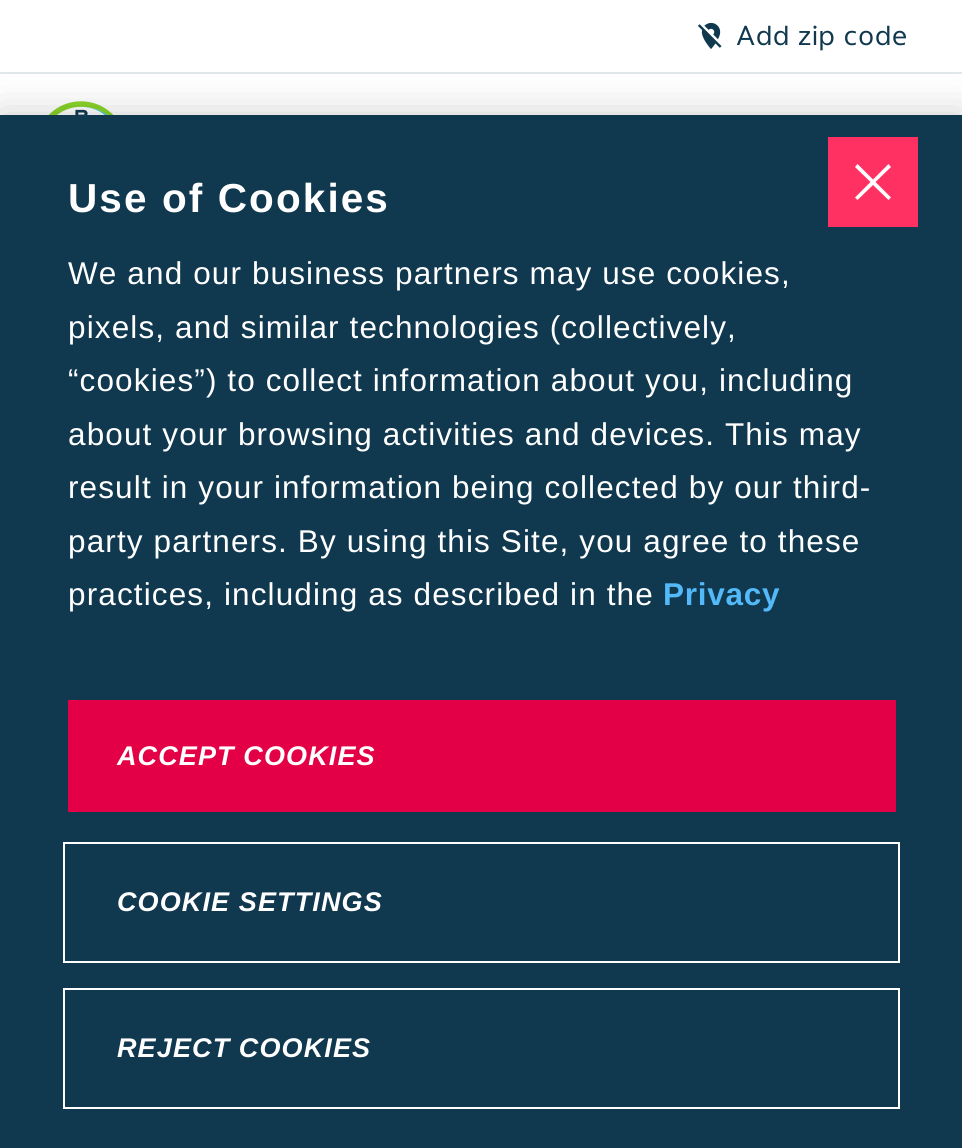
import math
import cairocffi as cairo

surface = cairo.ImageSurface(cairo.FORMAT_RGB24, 962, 1148)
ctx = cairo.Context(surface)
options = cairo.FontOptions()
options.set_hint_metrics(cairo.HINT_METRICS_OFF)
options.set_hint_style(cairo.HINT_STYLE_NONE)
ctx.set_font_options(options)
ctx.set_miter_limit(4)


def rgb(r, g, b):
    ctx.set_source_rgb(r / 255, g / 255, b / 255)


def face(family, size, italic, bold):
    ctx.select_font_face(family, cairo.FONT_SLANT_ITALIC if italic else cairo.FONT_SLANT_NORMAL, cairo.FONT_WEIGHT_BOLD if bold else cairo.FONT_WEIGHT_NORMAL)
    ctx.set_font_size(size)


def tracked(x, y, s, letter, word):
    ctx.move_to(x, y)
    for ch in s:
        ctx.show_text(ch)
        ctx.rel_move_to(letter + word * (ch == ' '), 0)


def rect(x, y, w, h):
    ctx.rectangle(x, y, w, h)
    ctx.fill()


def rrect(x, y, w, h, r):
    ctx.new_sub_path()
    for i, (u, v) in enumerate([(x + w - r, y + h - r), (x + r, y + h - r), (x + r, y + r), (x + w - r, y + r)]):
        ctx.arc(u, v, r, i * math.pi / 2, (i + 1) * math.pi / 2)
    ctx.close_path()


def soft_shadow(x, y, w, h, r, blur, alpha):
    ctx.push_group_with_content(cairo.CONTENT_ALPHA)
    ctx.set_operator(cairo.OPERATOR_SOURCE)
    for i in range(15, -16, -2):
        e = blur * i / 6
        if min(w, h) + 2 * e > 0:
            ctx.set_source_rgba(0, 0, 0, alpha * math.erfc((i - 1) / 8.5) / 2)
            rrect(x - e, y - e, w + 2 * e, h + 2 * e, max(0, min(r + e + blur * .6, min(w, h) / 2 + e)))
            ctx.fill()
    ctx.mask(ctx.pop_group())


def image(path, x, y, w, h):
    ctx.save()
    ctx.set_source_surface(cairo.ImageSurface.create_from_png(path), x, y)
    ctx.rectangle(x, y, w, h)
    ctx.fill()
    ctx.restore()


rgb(255, 255, 255)
ctx.paint()
image('image0.png', 698, 22, 24, 27)
face('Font', 27, 0, 0)
rgb(16, 56, 79)
tracked(736, 45, 'Add zip code', 0.5, 0)
rgb(226, 231, 234)
rect(0, 72, 962, 2)
image('image1.png', 48, 101, 66, 14)
rgb(0, 0, 0)
soft_shadow(0, 115, 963, 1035, 0, 20, 0.2)
rgb(16, 56, 79)
rect(0, 115, 962, 1033)
face('Liberation Sans', 40.5, 0, 1)
rgb(255, 255, 255)
tracked(68, 212, 'Use of Cookies', 2.1, 0)
face('Liberation Sans', 31.5, 0, 0)
tracked(68, 284, 'We and our business partners may use cookies,', 1.12, 0)
tracked(68, 338, 'pixels, and similar technologies (collectively,', 1.12, 0)
tracked(68, 391, '“cookies”) to collect information about you, including', 1.12, 0)
tracked(68, 445, 'about your browsing activities and devices. This may', 1.12, 0)
tracked(68, 498, 'result in your information being collected by our third-', 1.12, 0)
tracked(68, 552, 'party partners. By using this Site, you agree to these', 1.12, 0)
tracked(68, 605, 'practices, including as described in the', 1.12, 0)
face('Liberation Sans', 31.5, 0, 1)
rgb(84, 185, 249)
tracked(663, 605, 'Privacy', 0.75, 0)
rgb(228, 0, 70)
rect(68, 700, 828, 112)
face('Liberation Sans', 27, 1, 1)
rgb(255, 255, 255)
tracked(117, 765, 'ACCEPT COOKIES', 1.12, 0)
ctx.rectangle(64, 843, 835, 119)
ctx.stroke()
tracked(117, 911, 'COOKIE SETTINGS', 1.12, 0)
ctx.rectangle(64, 989, 835, 119)
ctx.stroke()
tracked(117, 1057, 'REJECT COOKIES', 1.12, 0)
rgb(255, 49, 98)
rect(828, 137, 90, 90)
rgb(255, 255, 255)
ctx.new_path()
ctx.move_to(891, 167)
ctx.line_to(888.5, 164)
ctx.line_to(873, 179.5)
ctx.line_to(857.5, 164)
ctx.line_to(855, 167)
ctx.line_to(870.5, 182)
ctx.line_to(855, 197.5)
ctx.line_to(857.5, 200)
ctx.line_to(873, 185)
ctx.line_to(888.5, 200)
ctx.line_to(891, 197.5)
ctx.line_to(875.5, 182)
ctx.close_path()
ctx.fill()
surface.write_to_png('render.png')
